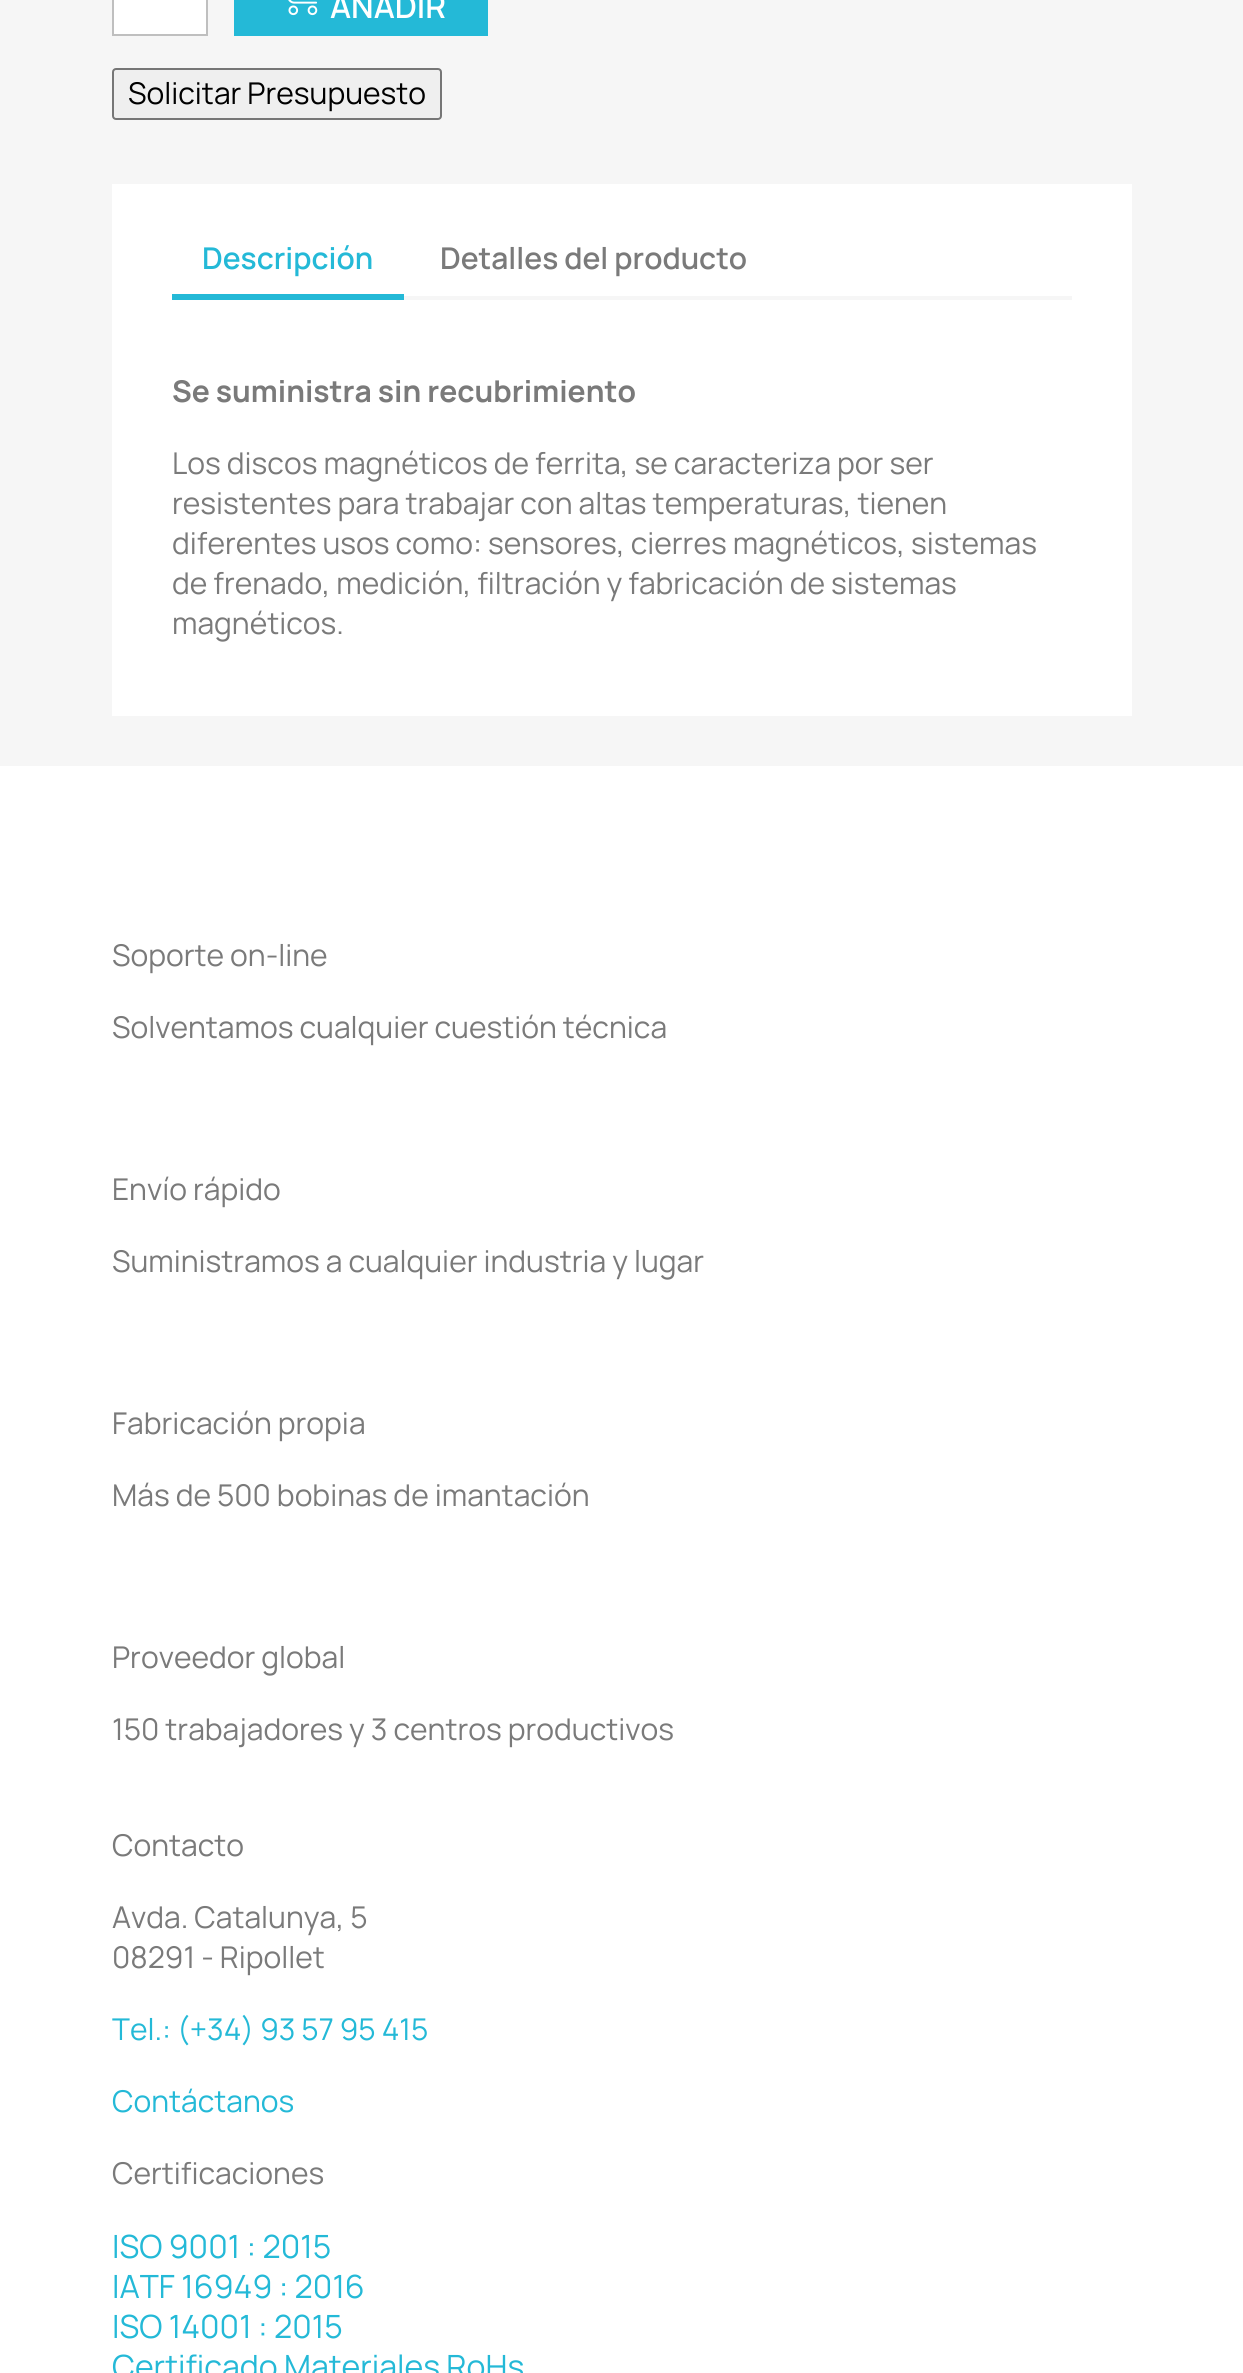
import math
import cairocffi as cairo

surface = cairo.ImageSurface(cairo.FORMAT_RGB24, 1243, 2373)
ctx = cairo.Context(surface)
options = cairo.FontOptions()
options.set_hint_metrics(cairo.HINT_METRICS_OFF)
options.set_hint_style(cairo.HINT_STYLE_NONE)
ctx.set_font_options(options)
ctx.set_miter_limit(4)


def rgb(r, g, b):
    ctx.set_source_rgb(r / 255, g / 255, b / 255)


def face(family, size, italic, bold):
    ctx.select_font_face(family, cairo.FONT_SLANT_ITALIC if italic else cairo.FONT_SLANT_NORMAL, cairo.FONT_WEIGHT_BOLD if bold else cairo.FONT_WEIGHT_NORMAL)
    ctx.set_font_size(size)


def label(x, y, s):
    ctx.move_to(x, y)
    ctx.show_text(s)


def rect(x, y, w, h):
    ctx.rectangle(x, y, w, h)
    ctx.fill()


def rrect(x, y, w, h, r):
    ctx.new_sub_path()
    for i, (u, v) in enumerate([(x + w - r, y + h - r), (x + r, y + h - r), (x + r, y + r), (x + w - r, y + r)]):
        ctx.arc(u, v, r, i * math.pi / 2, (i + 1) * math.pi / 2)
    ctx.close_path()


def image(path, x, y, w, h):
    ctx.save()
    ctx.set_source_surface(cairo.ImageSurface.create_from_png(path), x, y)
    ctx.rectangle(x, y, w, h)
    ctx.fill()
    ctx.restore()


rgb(255, 255, 255)
ctx.paint()
rgb(246, 246, 246)
rect(0, 0, 1243, 766)
rgb(255, 255, 255)
ctx.rectangle(113, -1, 94, 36)
ctx.fill_preserve()
rgb(191, 191, 191)
ctx.stroke()
rgb(36, 185, 215)
rect(234, 0, 254, 36)
image('image0.png', 288, 0, 30, 16)
face('Manrope SemiBold', 32, 0, 0)
rgb(255, 255, 255)
label(330, 18, 'AÑADIR')
rgb(239, 239, 239)
rrect(113, 69, 328, 50, 3)
ctx.fill_preserve()
rgb(118, 118, 118)
ctx.stroke()
face('Manrope', 30, 0, 0)
rgb(0, 0, 0)
label(128, 104, 'Solicitar Presupuesto')
rgb(255, 255, 255)
rect(112, 184, 1020, 532)
rgb(246, 246, 246)
rect(404, 296, 668, 4)
rgb(36, 185, 215)
rect(172, 294, 232, 6)
face('Manrope SemiBold', 30, 0, 0)
label(202, 269, 'Descripción')
rgb(122, 122, 122)
label(440, 269, 'Detalles del producto')
face('Manrope', 30, 0, 1)
label(172, 402, 'Se suministra sin recubrimiento')
face('Manrope', 30, 0, 0)
label(172, 474, 'Los discos magnéticos de ferrita, se caracteriza por ser')
label(172, 514, 'resistentes para trabajar con altas temperaturas, tienen')
label(172, 554, 'diferentes usos como: sensores, cierres magnéticos, sistemas')
label(172, 594, 'de frenado, medición, filtración y fabricación de sistemas')
label(172, 634, 'magnéticos.')
label(112, 966, 'Soporte on-line')
label(112, 1038, 'Solventamos cualquier cuestión técnica')
label(112, 1200, 'Envío rápido')
label(112, 1272, 'Suministramos a cualquier industria y lugar')
label(112, 1434, 'Fabricación propia')
label(112, 1506, 'Más de 500 bobinas de imantación')
label(112, 1668, 'Proveedor global')
label(112, 1740, '150 trabajadores y 3 centros productivos')
label(112, 1856, 'Contacto')
label(112, 1928, 'Avda. Catalunya, 5')
label(112, 1968, '08291 - Ripollet')
rgb(36, 185, 215)
label(112, 2040, 'Tel.: (+34) 93 57 95 415')
label(112, 2112, 'Contáctanos')
rgb(122, 122, 122)
label(112, 2184, 'Certificaciones')
face('Manrope', 32, 0, 0)
rgb(36, 185, 215)
label(112, 2258, 'ISO 9001 : 2015')
label(112, 2298, 'IATF 16949 : 2016')
label(112, 2338, 'ISO 14001 : 2015')
label(112, 2378, 'Certificado Materiales RoHs')
surface.write_to_png('render.png')
